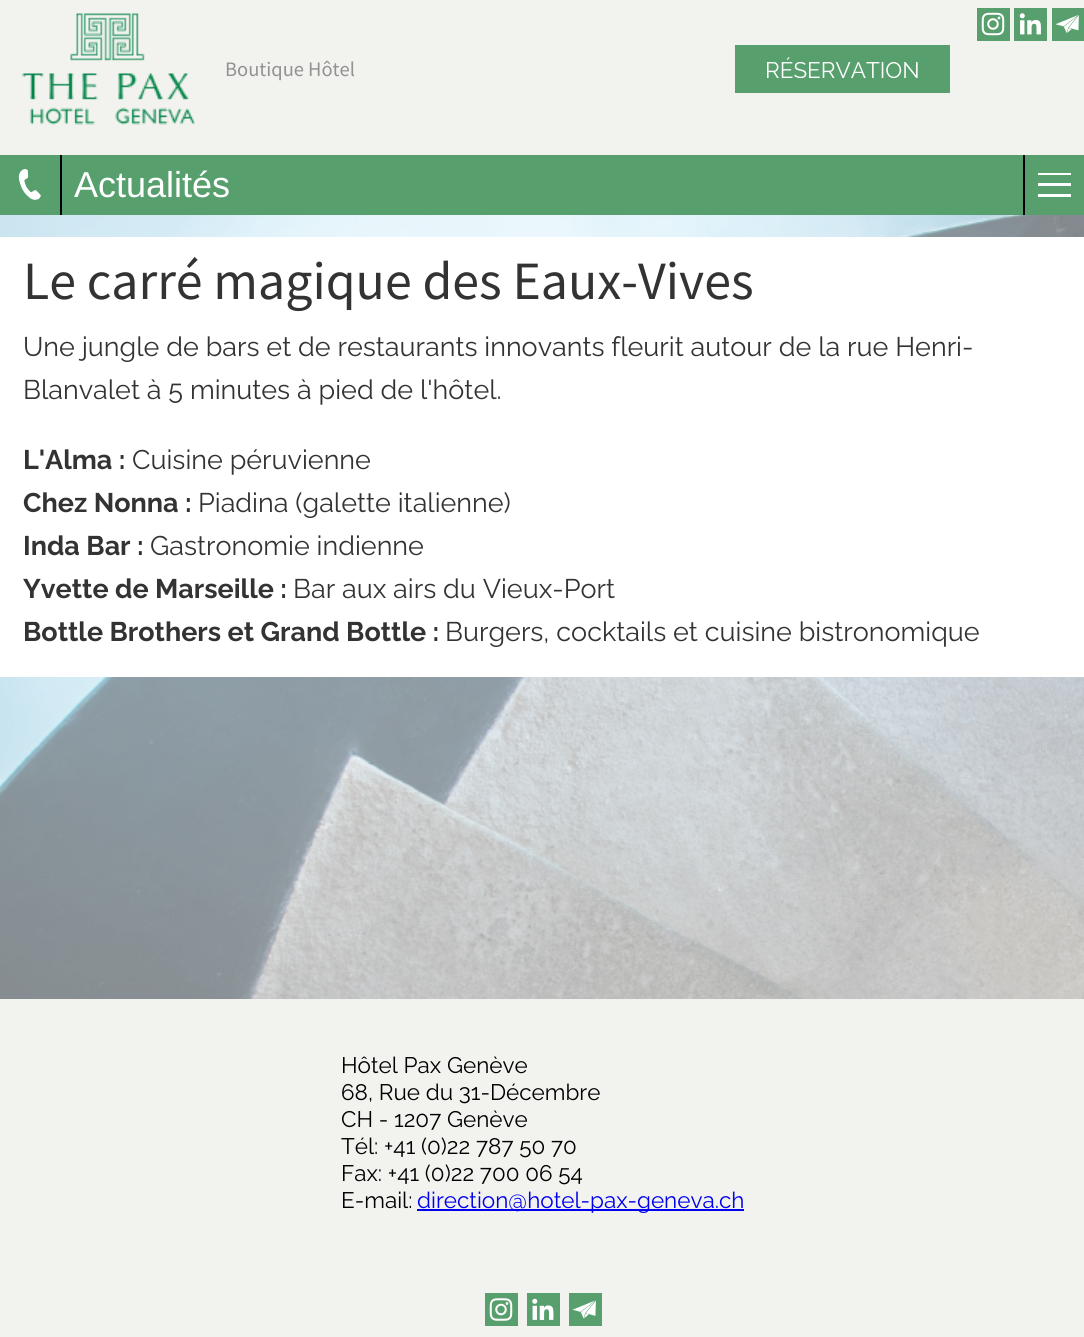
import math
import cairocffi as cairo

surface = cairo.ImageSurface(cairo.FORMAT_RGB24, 1084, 1337)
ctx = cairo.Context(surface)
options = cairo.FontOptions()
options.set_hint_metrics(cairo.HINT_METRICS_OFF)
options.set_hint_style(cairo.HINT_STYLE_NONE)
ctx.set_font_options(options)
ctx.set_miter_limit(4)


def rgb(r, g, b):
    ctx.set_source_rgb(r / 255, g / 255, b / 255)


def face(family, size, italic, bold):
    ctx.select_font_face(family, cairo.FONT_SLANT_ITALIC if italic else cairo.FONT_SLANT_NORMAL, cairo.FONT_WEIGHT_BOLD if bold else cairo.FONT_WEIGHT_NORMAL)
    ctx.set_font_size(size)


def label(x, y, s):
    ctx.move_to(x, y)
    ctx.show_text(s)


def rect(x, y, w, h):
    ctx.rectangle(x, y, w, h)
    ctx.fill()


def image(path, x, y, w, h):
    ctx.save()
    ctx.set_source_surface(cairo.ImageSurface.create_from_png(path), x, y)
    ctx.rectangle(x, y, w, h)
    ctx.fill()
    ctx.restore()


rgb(255, 255, 255)
ctx.paint()
image('image0.png', 0, 215, 1084, 784)
rgb(242, 242, 239)
rect(0, 0, 1084, 155)
rgb(87, 159, 109)
rect(977, 8, 33, 33)
image('image1.png', 981, 12, 24, 24)
rect(1014, 8, 33, 33)
image('image2.png', 1019, 13, 22, 22)
rect(1052, 8, 32, 33)
image('image3.png', 1055, 15, 24, 18)
image('image4.png', 22, 13, 173, 112)
face('Source Sans Pro', 20.5, 0, 0)
rgb(146, 146, 146)
label(225, 76, 'Boutique Hôtel')
rgb(87, 159, 109)
rect(735, 45, 215, 48)
face('Raleway Thin', 22.5, 0, 0)
rgb(255, 255, 255)
label(765, 78, 'RÉSERVATION')
rgb(87, 159, 109)
rect(0, 155, 1084, 60)
rgb(0, 0, 0)
rect(60, 155, 2, 60)
image('image5.png', 18, 169, 23, 31)
face('Liberation Sans', 36, 0, 0)
rgb(255, 255, 255)
label(74, 197, 'Actualités')
rgb(0, 0, 0)
rect(1023, 155, 2, 60)
rgb(255, 255, 255)
rect(1038, 173, 33, 2)
rect(1038, 183, 33, 3)
rect(1038, 194, 33, 3)
rect(0, 237, 1084, 440)
face('Source Sans Pro', 53.9, 0, 0)
rgb(51, 51, 51)
label(23, 299, 'Le carré magique des Eaux-Vives')
face('Raleway Thin', 26.95, 0, 0)
label(23, 356, 'Une jungle de bars et de restaurants innovants fleurit autour de la rue Henri-')
label(23, 399, 'Blanvalet à 5 minutes à pied de l\'hôtel.')
face('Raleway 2 Thin', 26.95, 0, 0)
label(23, 469, 'L\'Alma :')
face('Raleway Thin', 26.95, 0, 0)
label(132, 469, 'Cuisine péruvienne')
face('Raleway 2 Thin', 26.95, 0, 0)
label(23, 512, 'Chez Nonna :')
face('Raleway Thin', 26.95, 0, 0)
label(198, 512, 'Piadina (galette italienne)')
face('Raleway 2 Thin', 26.95, 0, 0)
label(23, 555, 'Inda Bar :')
face('Raleway Thin', 26.95, 0, 0)
label(150, 555, 'Gastronomie indienne')
face('Raleway 2 Thin', 26.95, 0, 0)
label(23, 598, 'Yvette de Marseille :')
face('Raleway Thin', 26.95, 0, 0)
label(293, 598, 'Bar aux airs du Vieux-Port')
face('Raleway 2 Thin', 26.95, 0, 0)
label(23, 641, 'Bottle Brothers et Grand Bottle :')
face('Raleway Thin', 26.95, 0, 0)
label(445, 641, 'Burgers, cocktails et cuisine bistronomique')
rgb(242, 242, 239)
rect(0, 999, 1084, 338)
face('Raleway Thin', 22.5, 0, 0)
rgb(0, 0, 0)
label(341, 1073, 'Hôtel Pax Genève')
label(341, 1100, '68, Rue du 31-Décembre')
label(341, 1127, 'CH - 1207 Genève')
label(341, 1154, 'Tél: +41 (0)22 787 50 70')
label(341, 1181, 'Fax: +41 (0)22 700 06 54')
label(341, 1208, 'E-mail:')
rgb(0, 0, 238)
rect(417, 1209, 327, 2)
label(417, 1208, 'direction@hotel-pax-geneva.ch')
rgb(87, 159, 109)
rect(485, 1293, 33, 33)
image('image6.png', 489, 1298, 24, 23)
rect(527, 1293, 33, 33)
image('image7.png', 532, 1298, 22, 22)
rect(569, 1293, 33, 33)
image('image8.png', 572, 1300, 24, 19)
surface.write_to_png('render.png')
